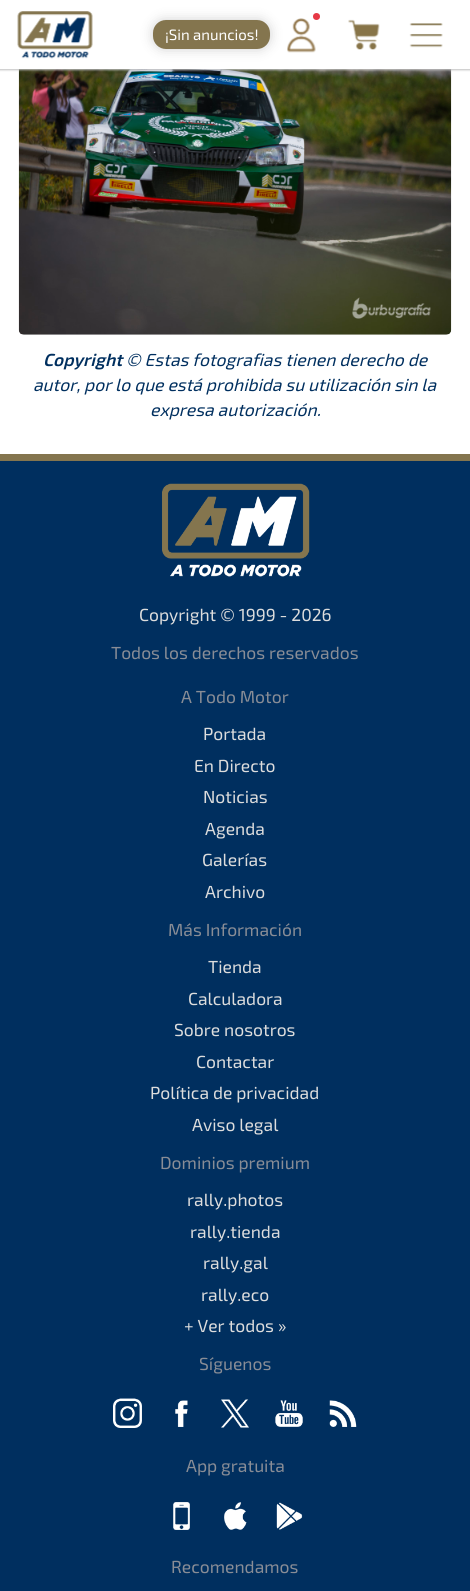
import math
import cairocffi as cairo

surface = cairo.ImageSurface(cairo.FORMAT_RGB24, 470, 1591)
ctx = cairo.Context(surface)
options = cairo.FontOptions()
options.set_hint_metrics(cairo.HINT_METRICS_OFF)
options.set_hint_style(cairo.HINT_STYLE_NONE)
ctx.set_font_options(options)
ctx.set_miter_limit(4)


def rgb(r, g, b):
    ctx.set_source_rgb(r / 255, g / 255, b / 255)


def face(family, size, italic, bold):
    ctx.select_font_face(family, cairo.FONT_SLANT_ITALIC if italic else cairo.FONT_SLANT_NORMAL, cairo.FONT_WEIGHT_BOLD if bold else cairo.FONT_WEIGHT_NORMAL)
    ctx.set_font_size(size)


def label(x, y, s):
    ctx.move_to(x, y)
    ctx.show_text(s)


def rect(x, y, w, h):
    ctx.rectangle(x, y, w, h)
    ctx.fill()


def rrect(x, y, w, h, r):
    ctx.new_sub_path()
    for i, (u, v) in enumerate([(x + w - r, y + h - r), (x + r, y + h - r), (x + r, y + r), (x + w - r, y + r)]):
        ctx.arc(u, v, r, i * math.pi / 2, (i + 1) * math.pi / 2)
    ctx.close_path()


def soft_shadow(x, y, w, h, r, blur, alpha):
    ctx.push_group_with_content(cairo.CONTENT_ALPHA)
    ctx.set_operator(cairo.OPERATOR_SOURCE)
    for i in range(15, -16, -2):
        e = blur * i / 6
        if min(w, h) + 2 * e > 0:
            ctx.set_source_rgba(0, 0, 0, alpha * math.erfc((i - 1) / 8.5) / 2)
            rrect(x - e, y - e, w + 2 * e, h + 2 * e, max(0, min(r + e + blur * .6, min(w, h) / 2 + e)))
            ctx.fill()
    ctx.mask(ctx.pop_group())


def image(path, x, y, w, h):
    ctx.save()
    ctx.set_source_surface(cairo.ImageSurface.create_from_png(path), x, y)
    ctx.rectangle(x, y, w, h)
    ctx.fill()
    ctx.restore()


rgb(255, 255, 255)
ctx.paint()
image('image4.png', 18, 69, 434, 266)
rgb(192, 192, 192)
soft_shadow(-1, -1, 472, 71, 0, 1, 1)
rgb(255, 255, 255)
rect(0, 0, 470, 69)
image('image0.png', 17, 11, 76, 48)
rgb(0, 0, 0)
soft_shadow(153, 20, 117, 29, 13, 6, 0.18)
rgb(132, 117, 78)
rrect(153, 20, 117, 29, 13)
ctx.fill()
face('Exo 2', 15, 0, 0)
rgb(255, 255, 255)
label(165, 40, '¡Sin anuncios!')
image('image1.png', 287, 18, 29, 35)
rgb(230, 57, 70)
ctx.arc(316.5, 16.5, 3.5, 0, 2 * math.pi)
ctx.fill()
image('image2.png', 348, 19, 32, 31)
image('image3.png', 409, 23, 34, 25)
face('Exo 2 SemiBold', 17.5, 1, 0)
rgb(0, 47, 95)
label(43, 366, 'Copyright')
face('Exo 2', 17.5, 1, 0)
label(126, 366, '© Estas fotografias tienen derecho de')
label(33, 391, 'autor, por lo que está prohibida su utilización sin la')
label(150, 416, 'expresa autorización.')
rect(0, 461, 470, 1130)
rgb(132, 117, 78)
rect(0, 454, 470, 7)
image('image5.png', 162, 483, 148, 94)
face('Exo 2', 17.5, 0, 0)
rgb(221, 221, 221)
label(139, 621, 'Copyright © 1999 - 2026')
rgb(137, 141, 150)
label(111, 659, 'Todos los derechos reservados')
label(181, 703, 'A Todo Motor')
rgb(221, 221, 221)
label(203, 740, 'Portada')
label(194, 772, 'En Directo')
label(203, 803, 'Noticias')
label(205, 835, 'Agenda')
label(202, 866, 'Galerías')
label(205, 898, 'Archivo')
rgb(137, 141, 150)
label(168, 936, 'Más Información')
rgb(221, 221, 221)
label(208, 973, 'Tienda')
label(188, 1005, 'Calculadora')
label(174, 1036, 'Sobre nosotros')
label(196, 1068, 'Contactar')
label(150, 1099, 'Política de privacidad')
label(192, 1131, 'Aviso legal')
rgb(137, 141, 150)
label(160, 1169, 'Dominios premium')
rgb(221, 221, 221)
label(187, 1206, 'rally.photos')
label(190, 1238, 'rally.tienda')
label(203, 1269, 'rally.gal')
label(201, 1301, 'rally.eco')
label(184, 1332, '+ Ver todos »')
rgb(137, 141, 150)
label(199, 1370, 'Síguenos')
image('image6.png', 113, 1398, 29, 30)
image('image7.png', 175, 1400, 13, 27)
image('image8.png', 221, 1399, 28, 29)
image('image9.png', 275, 1400, 28, 27)
image('image10.png', 329, 1400, 28, 27)
label(186, 1472, 'App gratuita')
image('image11.png', 173, 1502, 17, 28)
image('image12.png', 224, 1502, 23, 28)
image('image13.png', 276, 1502, 27, 28)
label(171, 1573, 'Recomendamos')
surface.write_to_png('render.png')
